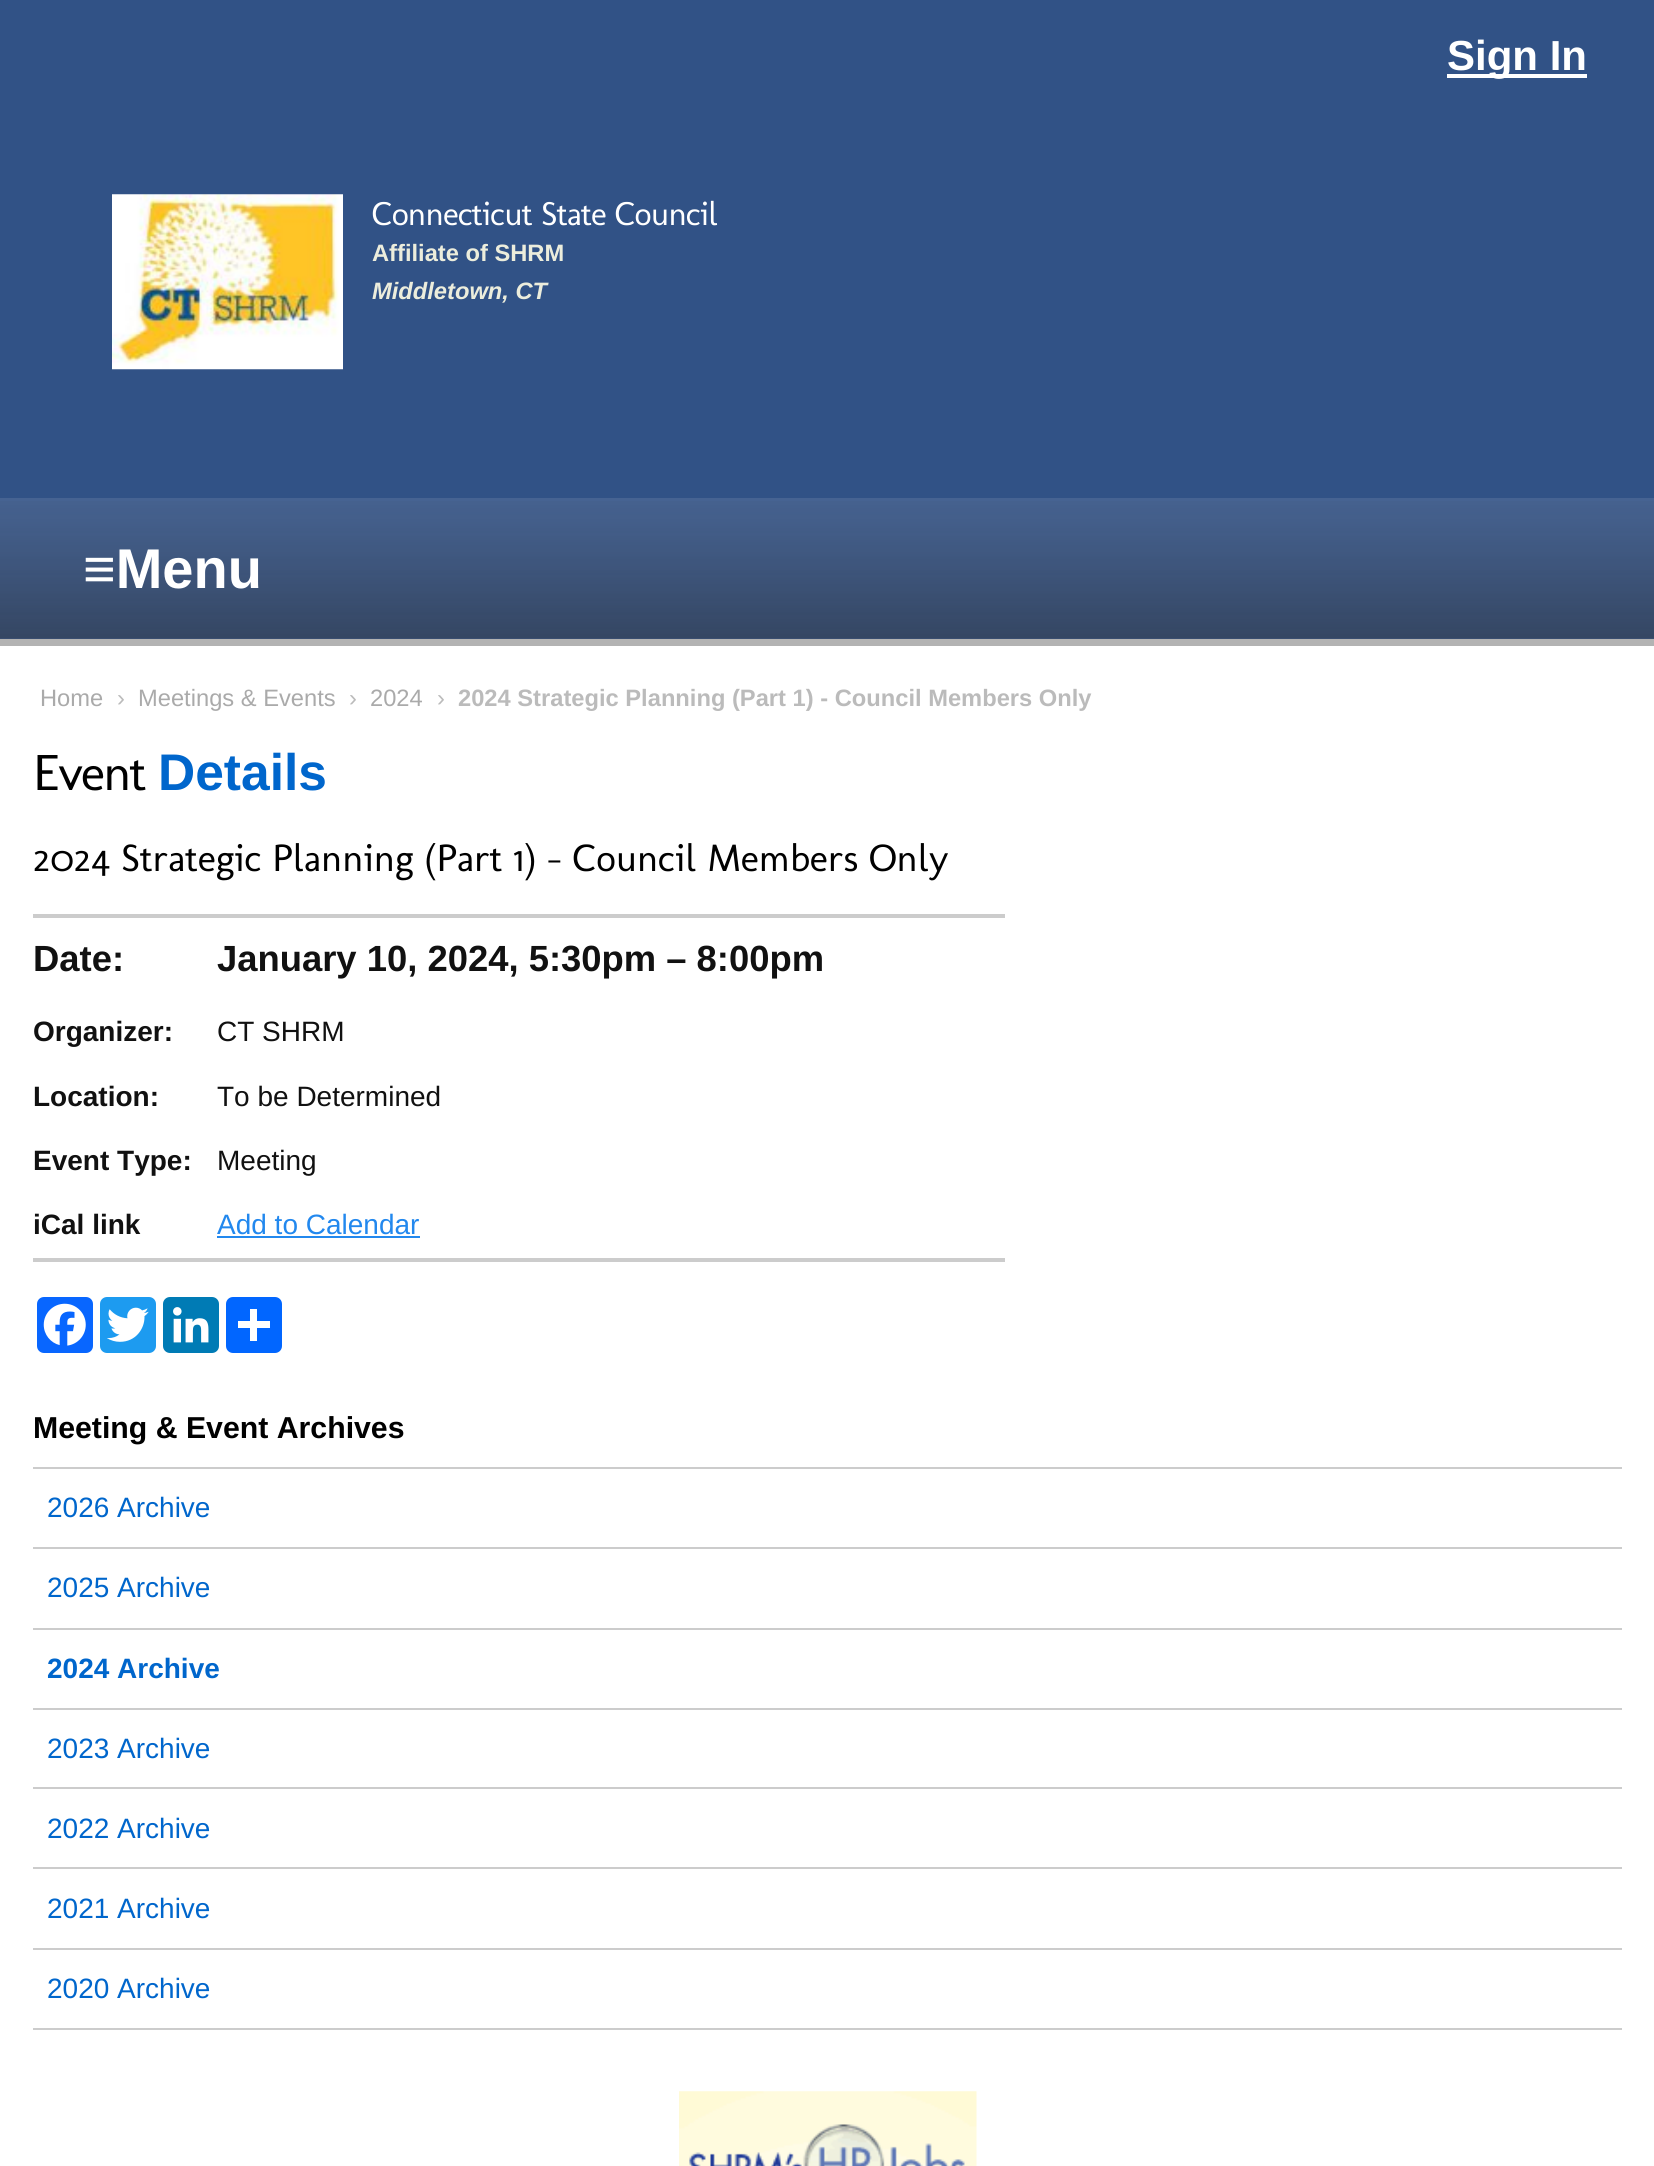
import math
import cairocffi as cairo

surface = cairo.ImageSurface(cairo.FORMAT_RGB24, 1654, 2166)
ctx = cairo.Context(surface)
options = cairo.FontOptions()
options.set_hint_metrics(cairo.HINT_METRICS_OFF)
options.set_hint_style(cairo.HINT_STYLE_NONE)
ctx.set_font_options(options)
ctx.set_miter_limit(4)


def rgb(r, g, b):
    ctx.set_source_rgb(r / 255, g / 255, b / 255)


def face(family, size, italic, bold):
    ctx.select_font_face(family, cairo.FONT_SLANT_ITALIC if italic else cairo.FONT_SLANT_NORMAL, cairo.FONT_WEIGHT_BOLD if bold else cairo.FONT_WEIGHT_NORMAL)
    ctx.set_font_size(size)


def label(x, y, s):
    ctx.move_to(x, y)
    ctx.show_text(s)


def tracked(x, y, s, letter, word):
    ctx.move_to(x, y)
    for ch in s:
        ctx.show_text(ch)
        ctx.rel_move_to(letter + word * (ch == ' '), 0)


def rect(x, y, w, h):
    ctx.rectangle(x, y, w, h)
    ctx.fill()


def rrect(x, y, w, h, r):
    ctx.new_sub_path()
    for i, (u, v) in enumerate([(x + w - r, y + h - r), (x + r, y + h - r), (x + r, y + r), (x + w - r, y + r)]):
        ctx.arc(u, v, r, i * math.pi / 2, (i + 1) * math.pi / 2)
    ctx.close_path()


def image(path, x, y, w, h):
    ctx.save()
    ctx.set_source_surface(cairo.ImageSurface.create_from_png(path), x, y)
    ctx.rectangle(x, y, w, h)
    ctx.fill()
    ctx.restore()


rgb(255, 255, 255)
ctx.paint()
rgb(49, 82, 134)
rect(0, 0, 1654, 498)
rgb(70, 99, 146)
rect(0, 498, 1654, 141)
image('image0.png', 0, 501, 1654, 138)
rgb(179, 179, 179)
rect(0, 639, 1654, 7)
rgb(255, 255, 255)
rect(1447, 74, 140, 4)
face('Liberation Sans', 42, 0, 1)
label(1447, 70, 'Sign In')
image('image1.png', 112, 194, 231, 176)
face('Molengo', 33.6, 0, 0)
tracked(372, 225, 'Connecticut State Council', -0.7, 0)
face('Liberation Sans', 23.7, 0, 1)
rgb(236, 237, 220)
label(372, 261, 'Affiliate of SHRM')
face('Liberation Sans', 23.7, 1, 1)
label(372, 299, 'Middletown, CT')
face('Liberation Sans', 56, 0, 1)
rgb(255, 255, 255)
label(83, 588, '≡Menu')
face('Liberation Sans', 23.7, 0, 0)
rgb(170, 170, 170)
label(40, 706, 'Home')
rgb(187, 187, 187)
label(117, 706, '›')
rgb(170, 170, 170)
label(138, 706, 'Meetings & Events')
rgb(187, 187, 187)
label(349, 706, '›')
rgb(170, 170, 170)
label(370, 706, '2024')
rgb(187, 187, 187)
label(437, 706, '›')
face('Liberation Sans', 23.7, 0, 1)
label(458, 706, '2024 Strategic Planning (Part 1) - Council Members Only')
face('Molengo', 51.5, 0, 0)
rgb(0, 0, 0)
tracked(33, 790, 'Event', -1.75, 0)
face('Liberation Sans', 51.5, 0, 1)
rgb(0, 102, 204)
label(158, 790, 'Details')
face('Molengo', 38.75, 0, 0)
rgb(0, 0, 0)
label(33, 871, '2024 Strategic Planning (Part 1) - Council Members Only')
rgb(204, 204, 204)
rect(33, 914, 972, 4)
rect(33, 1258, 972, 4)
face('Liberation Sans', 36.4, 0, 1)
rgb(17, 17, 17)
label(33, 971, 'Date:')
label(217, 971, 'January 10, 2024, 5:30pm – 8:00pm')
face('Liberation Sans', 28, 0, 1)
label(33, 1041, 'Organizer:')
face('Liberation Sans', 28, 0, 0)
label(217, 1041, 'CT SHRM')
face('Liberation Sans', 28, 0, 1)
label(33, 1106, 'Location:')
face('Liberation Sans', 28, 0, 0)
label(217, 1106, 'To be Determined')
face('Liberation Sans', 28, 0, 1)
label(33, 1170, 'Event Type:')
face('Liberation Sans', 28, 0, 0)
label(217, 1170, 'Meeting')
face('Liberation Sans', 28, 0, 1)
label(33, 1234, 'iCal link')
face('Liberation Sans', 28, 0, 0)
rgb(34, 136, 238)
label(217, 1234, 'Add to Calendar')
rect(217, 1236, 203, 2)
rgb(8, 102, 255)
rrect(37, 1297, 56, 56, 7)
ctx.fill()
image('image2.png', 43, 1303, 43, 43)
rgb(29, 155, 240)
rrect(100, 1297, 56, 56, 7)
ctx.fill()
image('image3.png', 107, 1307, 42, 35)
rgb(0, 123, 181)
rrect(163, 1297, 56, 56, 7)
ctx.fill()
image('image4.png', 173, 1307, 36, 36)
rgb(1, 102, 255)
rrect(226, 1297, 56, 56, 7)
ctx.fill()
rgb(255, 255, 255)
rect(250, 1309, 7, 32)
rect(238, 1321, 32, 7)
face('Liberation Sans', 30.25, 0, 1)
rgb(0, 0, 0)
label(33, 1438, 'Meeting & Event Archives')
rgb(204, 204, 204)
rect(33, 1467, 1589, 2)
rect(33, 1547, 1589, 2)
face('Liberation Sans', 28, 0, 0)
rgb(0, 102, 204)
label(47, 1517, '2026 Archive')
rgb(204, 204, 204)
rect(33, 1628, 1589, 2)
rgb(0, 102, 204)
label(47, 1597, '2025 Archive')
rgb(204, 204, 204)
rect(33, 1708, 1589, 2)
face('Liberation Sans', 28, 0, 1)
rgb(0, 102, 204)
label(47, 1678, '2024 Archive')
rgb(204, 204, 204)
rect(33, 1787, 1589, 2)
face('Liberation Sans', 28, 0, 0)
rgb(0, 102, 204)
label(47, 1758, '2023 Archive')
rgb(204, 204, 204)
rect(33, 1867, 1589, 2)
rgb(0, 102, 204)
label(47, 1838, '2022 Archive')
rgb(204, 204, 204)
rect(33, 1948, 1589, 2)
rgb(0, 102, 204)
label(47, 1918, '2021 Archive')
rgb(204, 204, 204)
rect(33, 2028, 1589, 2)
rgb(0, 102, 204)
label(47, 1998, '2020 Archive')
image('image5.png', 679, 2091, 298, 75)
surface.write_to_png('render.png')
